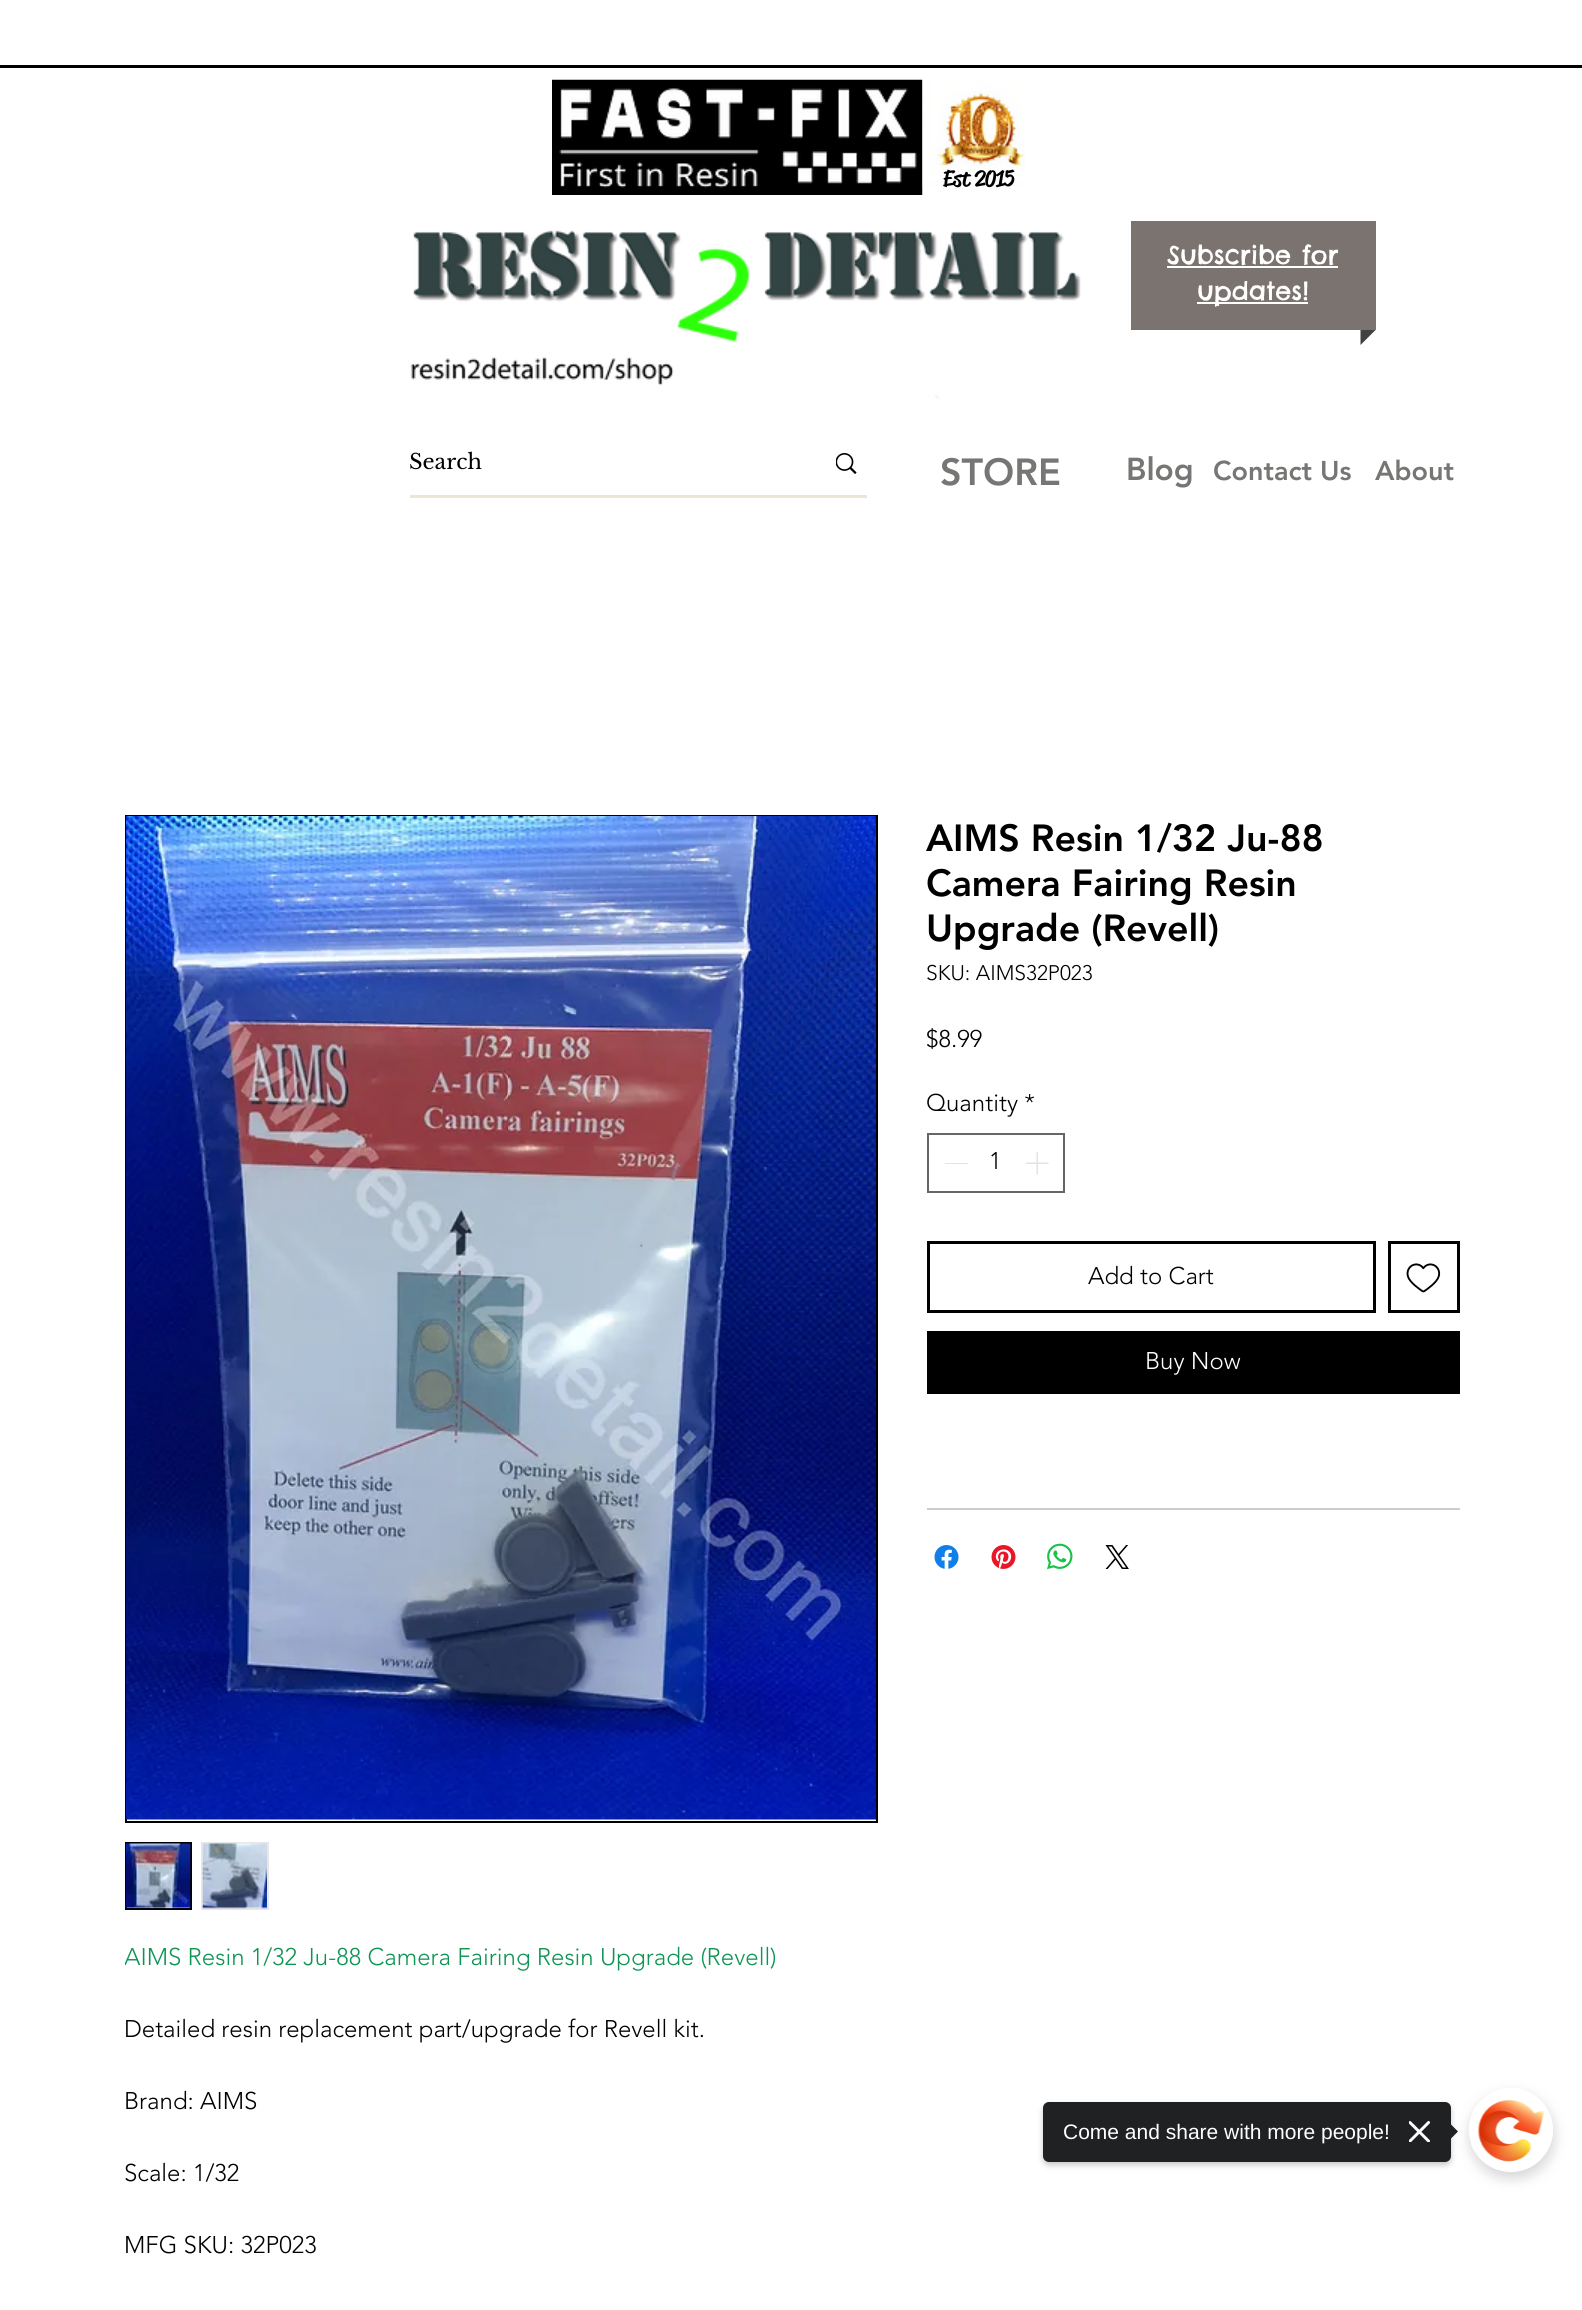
import math
import cairocffi as cairo

surface = cairo.ImageSurface(cairo.FORMAT_RGB24, 1582, 2310)
ctx = cairo.Context(surface)
options = cairo.FontOptions()
options.set_hint_metrics(cairo.HINT_METRICS_OFF)
options.set_hint_style(cairo.HINT_STYLE_NONE)
ctx.set_font_options(options)
ctx.set_miter_limit(4)


def rgb(r, g, b):
    ctx.set_source_rgb(r / 255, g / 255, b / 255)


def face(family, size, italic, bold):
    ctx.select_font_face(family, cairo.FONT_SLANT_ITALIC if italic else cairo.FONT_SLANT_NORMAL, cairo.FONT_WEIGHT_BOLD if bold else cairo.FONT_WEIGHT_NORMAL)
    ctx.set_font_size(size)


def label(x, y, s):
    ctx.move_to(x, y)
    ctx.show_text(s)


def rect(x, y, w, h):
    ctx.rectangle(x, y, w, h)
    ctx.fill()


def rrect(x, y, w, h, r):
    ctx.new_sub_path()
    for i, (u, v) in enumerate([(x + w - r, y + h - r), (x + r, y + h - r), (x + r, y + r), (x + w - r, y + r)]):
        ctx.arc(u, v, r, i * math.pi / 2, (i + 1) * math.pi / 2)
    ctx.close_path()


def soft_shadow(x, y, w, h, r, blur, alpha):
    ctx.push_group_with_content(cairo.CONTENT_ALPHA)
    ctx.set_operator(cairo.OPERATOR_SOURCE)
    for i in range(15, -16, -2):
        e = blur * i / 6
        if min(w, h) + 2 * e > 0:
            ctx.set_source_rgba(0, 0, 0, alpha * math.erfc((i - 1) / 8.5) / 2)
            rrect(x - e, y - e, w + 2 * e, h + 2 * e, max(0, min(r + e + blur * .6, min(w, h) / 2 + e)))
            ctx.fill()
    ctx.mask(ctx.pop_group())


def image(path, x, y, w, h):
    ctx.save()
    ctx.set_source_surface(cairo.ImageSurface.create_from_png(path), x, y)
    ctx.rectangle(x, y, w, h)
    ctx.fill()
    ctx.restore()


rgb(255, 255, 255)
ctx.paint()
rgb(0, 0, 0)
rect(0, 65, 1582, 3)
image('image0.png', 552, 79, 371, 116)
image('image1.png', 922, 79, 103, 109)
face('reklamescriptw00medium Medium', 22.5, 0, 0)
label(943, 186, 'Est 2015')
image('image2.png', 410, 230, 671, 169)
rgb(123, 115, 111)
rect(1131, 221, 245, 109)
face('Chelsea Market', 25.5, 0, 0)
rgb(255, 255, 255)
label(1167, 264, 'Subscribe for')
rect(1167, 266, 171, 2)
rect(1197, 302, 111, 2)
label(1197, 300, 'updates!')
rgb(65, 65, 65)
ctx.new_path()
ctx.move_to(1360.5, 330)
ctx.line_to(1375.5, 330)
ctx.line_to(1360.5, 345)
ctx.close_path()
ctx.fill()
rgb(235, 229, 214)
rect(410, 495, 457, 3)
face('Libre Baskerville', 21, 0, 0)
rgb(0, 0, 0)
label(409, 469, 'Search')
image('image3.png', 836, 453, 21, 21)
face('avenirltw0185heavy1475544 Black', 37.5, 0, 0)
rgb(118, 118, 116)
label(940, 485, 'STORE')
face('avenirltw0185heavy1475544 Black', 31.5, 0, 0)
label(1126, 480, 'Blog')
face('avenirltw0185heavy1475544 Black', 27, 0, 0)
label(1213, 480, 'Contact Us')
label(1375, 480, 'About')
face('avenirltw0185heavy1475544 Black', 37.5, 0, 0)
rgb(0, 0, 0)
label(926, 851, 'AIMS Resin 1/32 Ju-88')
label(926, 896, 'Camera Fairing Resin')
label(926, 941, 'Upgrade (Revell)')
face('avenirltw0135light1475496 Light', 21, 0, 0)
label(926, 980, 'SKU: AIMS32P023')
face('avenirltw0135light1475496 Light', 24, 0, 0)
label(926, 1047, '$8.99')
label(926, 1111, 'Quantity *')
ctx.rectangle(928, 1134, 136, 58)
rgb(102, 102, 102)
ctx.stroke()
rgb(227, 227, 227)
rect(945, 1163, 23, 1)
rgb(0, 0, 0)
label(989, 1169, '1')
image('image4.png', 1026, 1152, 23, 23)
ctx.rectangle(928.5, 1242.5, 446, 69)
ctx.set_line_width(3)
ctx.stroke()
label(1088, 1284, 'Add to Cart')
ctx.rectangle(1389.5, 1242.5, 69, 69)
ctx.stroke()
image('image5.png', 1406, 1263, 35, 30)
rect(927, 1331, 533, 63)
rgb(255, 255, 255)
label(1145, 1369, 'Buy Now')
rgb(204, 204, 204)
rect(927, 1508, 533, 2)
image('image6.png', 934, 1545, 25, 24)
image('image7.png', 991, 1545, 25, 24)
image('image8.png', 1047, 1543, 26, 27)
image('image9.png', 1105, 1545, 24, 24)
ctx.rectangle(126, 816, 751, 1006)
rgb(0, 0, 0)
ctx.set_line_width(2)
ctx.stroke()
image('image10.png', 126, 816, 750, 1004)
ctx.rectangle(126, 1843, 65, 66)
ctx.stroke()
image('image11.png', 126, 1843, 65, 66)
ctx.rectangle(202, 1843, 66, 66)
rgb(232, 230, 230)
ctx.stroke()
image('image12.png', 202, 1843, 65, 66)
ctx.save()
ctx.rectangle(125, 1940, 651, 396)
ctx.clip()
rgb(14, 149, 83)
label(124, 1965, 'AIMS Resin 1/32 Ju-88 Camera Fairing Resin Upgrade (Revell)')
ctx.restore()
rgb(0, 0, 0)
label(124, 2037, 'Detailed resin replacement part/upgrade for Revell kit.')
label(124, 2109, 'Brand: AIMS')
label(124, 2181, 'Scale: 1/32')
label(124, 2253, 'MFG SKU: 32P023')
ctx.save()
ctx.set_fill_rule(cairo.FILL_RULE_EVEN_ODD)
ctx.new_path()
ctx.move_to(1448, 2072)
ctx.line_to(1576, 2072)
ctx.line_to(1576, 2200)
ctx.line_to(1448, 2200)
ctx.close_path()
ctx.move_to(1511, 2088)
ctx.curve_to(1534, 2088, 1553, 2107, 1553, 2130)
ctx.curve_to(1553, 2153, 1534, 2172, 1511, 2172)
ctx.curve_to(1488, 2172, 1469, 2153, 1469, 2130)
ctx.curve_to(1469, 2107, 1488, 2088, 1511, 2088)
ctx.close_path()
ctx.clip()
rgb(0, 0, 0)
soft_shadow(1470, 2094, 84, 84, 42, 7, 0.17)
ctx.restore()
rgb(0, 0, 0)
soft_shadow(1043, 2105, 408, 60, 6, 3, 0.22)
rgb(32, 33, 35)
rrect(1043, 2102, 408, 60, 6)
ctx.fill()
face('Liberation Sans', 21, 0, 0)
rgb(255, 255, 255)
label(1063, 2139, 'Come and share with more people!')
image('image13.png', 1409, 2121, 21, 21)
rgb(32, 33, 35)
ctx.new_path()
ctx.move_to(1447.5, 2142)
ctx.line_to(1447.5, 2121)
ctx.line_to(1458, 2131.5)
ctx.close_path()
ctx.fill()
image('image14.png', 1471, 2100, 82, 70)
surface.write_to_png('render.png')
